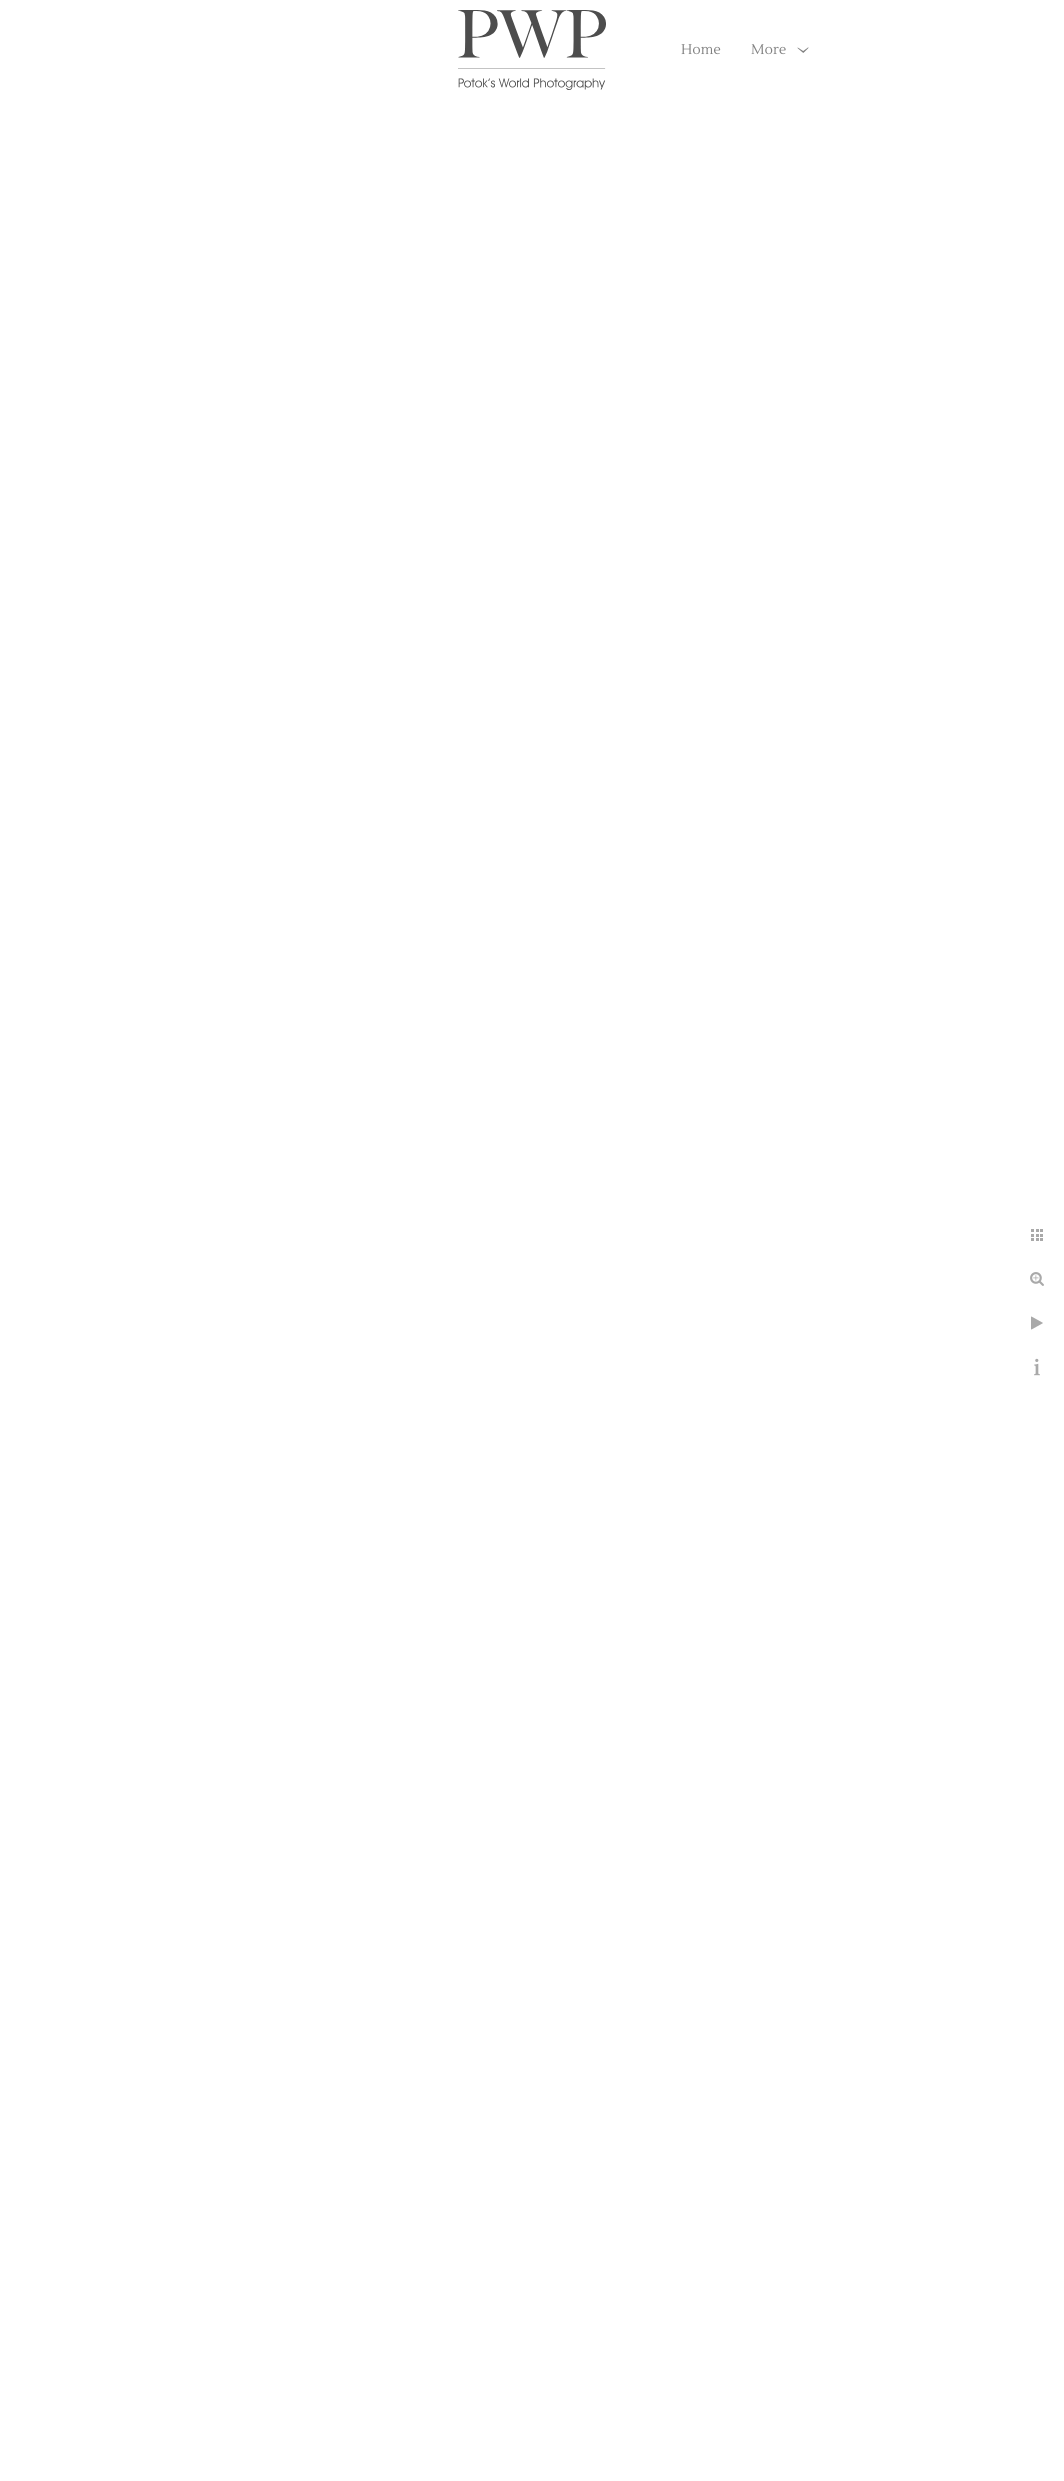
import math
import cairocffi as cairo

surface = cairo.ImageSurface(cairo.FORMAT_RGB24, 1064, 2481)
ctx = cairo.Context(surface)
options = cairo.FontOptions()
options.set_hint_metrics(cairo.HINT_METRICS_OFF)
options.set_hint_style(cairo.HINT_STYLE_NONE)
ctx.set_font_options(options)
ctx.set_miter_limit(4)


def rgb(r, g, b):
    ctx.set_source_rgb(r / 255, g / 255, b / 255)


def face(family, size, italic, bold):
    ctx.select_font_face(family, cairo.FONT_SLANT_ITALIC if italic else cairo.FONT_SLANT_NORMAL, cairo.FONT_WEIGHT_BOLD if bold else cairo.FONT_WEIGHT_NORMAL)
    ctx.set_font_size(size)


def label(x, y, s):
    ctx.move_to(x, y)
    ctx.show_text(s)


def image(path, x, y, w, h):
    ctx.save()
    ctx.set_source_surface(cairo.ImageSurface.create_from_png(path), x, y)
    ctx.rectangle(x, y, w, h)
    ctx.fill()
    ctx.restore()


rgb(255, 255, 255)
ctx.paint()
image('image0.png', 458, 10, 148, 80)
face('Lustria', 14, 0, 0)
rgb(128, 128, 128)
label(681, 54, 'Home')
label(751, 54, 'More')
image('image1.png', 797, 47, 12, 6)
image('image2.png', 1031, 1229, 12, 12)
image('image3.png', 1030, 1272, 14, 14)
image('image4.png', 1031, 1316, 12, 14)
image('image5.png', 1034, 1358, 6, 18)
surface.write_to_png('render.png')
